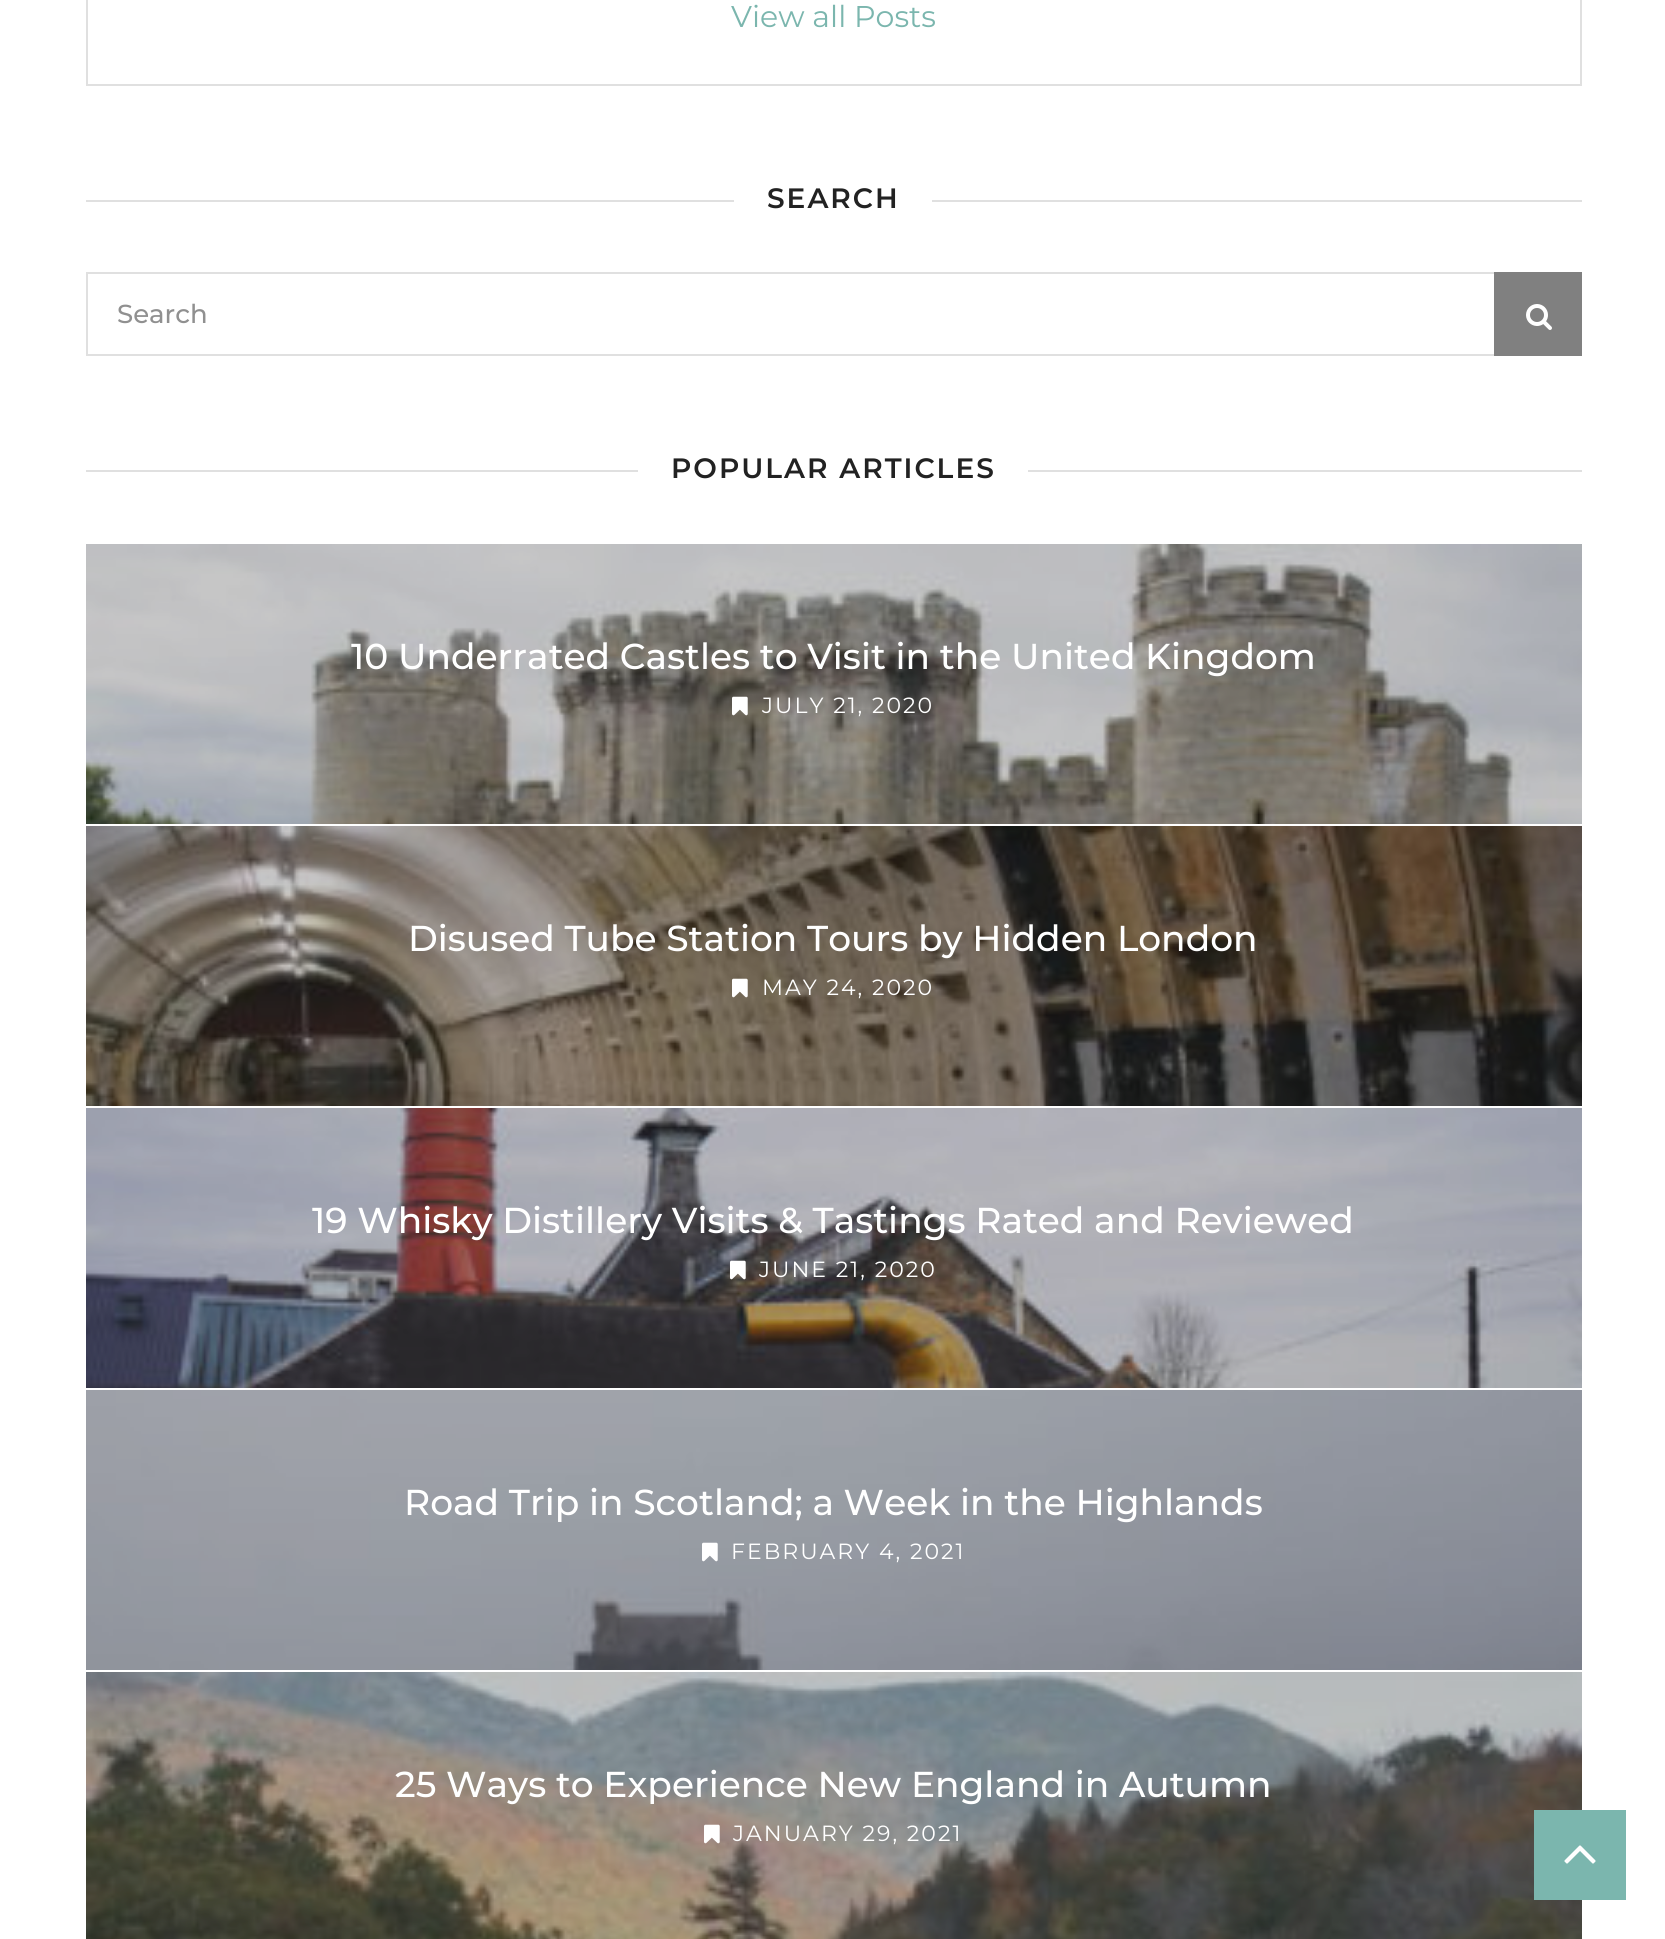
import math
import cairocffi as cairo

surface = cairo.ImageSurface(cairo.FORMAT_RGB24, 1665, 1939)
ctx = cairo.Context(surface)
options = cairo.FontOptions()
options.set_hint_metrics(cairo.HINT_METRICS_OFF)
options.set_hint_style(cairo.HINT_STYLE_NONE)
ctx.set_font_options(options)
ctx.set_miter_limit(4)


def rgb(r, g, b):
    ctx.set_source_rgb(r / 255, g / 255, b / 255)


def face(family, size, italic, bold):
    ctx.select_font_face(family, cairo.FONT_SLANT_ITALIC if italic else cairo.FONT_SLANT_NORMAL, cairo.FONT_WEIGHT_BOLD if bold else cairo.FONT_WEIGHT_NORMAL)
    ctx.set_font_size(size)


def label(x, y, s):
    ctx.move_to(x, y)
    ctx.show_text(s)


def tracked(x, y, s, letter, word):
    ctx.move_to(x, y)
    for ch in s:
        ctx.show_text(ch)
        ctx.rel_move_to(letter + word * (ch == ' '), 0)


def rect(x, y, w, h):
    ctx.rectangle(x, y, w, h)
    ctx.fill()


def image(path, x, y, w, h):
    ctx.save()
    ctx.set_source_surface(cairo.ImageSurface.create_from_png(path), x, y)
    ctx.rectangle(x, y, w, h)
    ctx.fill()
    ctx.restore()


rgb(255, 255, 255)
ctx.paint()
ctx.rectangle(87, -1, 1494, 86)
rgb(224, 224, 224)
ctx.stroke()
face('Montserrat', 30, 0, 0)
rgb(123, 182, 174)
label(731, 27, 'View all Posts')
rgb(224, 224, 224)
rect(86, 200, 1496, 2)
rgb(255, 255, 255)
rect(734, 200, 198, 2)
face('Montserrat SemiBold', 28, 0, 0)
rgb(34, 34, 34)
tracked(767, 208, 'SEARCH', 2, 0)
ctx.rectangle(87, 273, 1494, 82)
rgb(224, 224, 224)
ctx.stroke()
face('Montserrat Medium', 26, 0, 0)
rgb(144, 144, 144)
label(117, 323, 'Search')
rgb(128, 128, 128)
rect(1494, 272, 88, 84)
image('image0.png', 1526, 304, 26, 26)
rgb(224, 224, 224)
rect(86, 470, 1496, 2)
rgb(255, 255, 255)
rect(638, 470, 390, 2)
face('Montserrat SemiBold', 28, 0, 0)
rgb(34, 34, 34)
tracked(671, 478, 'POPULAR ARTICLES', 2, 0)
image('image1.png', 86, 544, 1496, 280)
face('Montserrat Medium', 36, 0, 0)
rgb(255, 255, 255)
label(351, 669, '10 Underrated Castles to Visit in the United Kingdom')
image('image2.png', 732, 696, 16, 20)
face('Montserrat', 22, 0, 0)
tracked(762, 713, 'JULY 21, 2020', 2, 0)
image('image3.png', 86, 826, 1496, 280)
face('Montserrat Medium', 36, 0, 0)
label(408, 951, 'Disused Tube Station Tours by Hidden London')
image('image4.png', 732, 978, 16, 20)
face('Montserrat', 22, 0, 0)
tracked(762, 995, 'MAY 24, 2020', 2, 0)
image('image5.png', 86, 1108, 1496, 280)
face('Montserrat Medium', 36, 0, 0)
label(312, 1233, '19 Whisky Distillery Visits & Tastings Rated and Reviewed')
image('image6.png', 730, 1260, 16, 20)
face('Montserrat', 22, 0, 0)
tracked(759, 1277, 'JUNE 21, 2020', 2, 0)
image('image7.png', 86, 1390, 1496, 280)
face('Montserrat Medium', 36, 0, 0)
label(404, 1515, 'Road Trip in Scotland; a Week in the Highlands')
image('image8.png', 702, 1542, 16, 20)
face('Montserrat', 22, 0, 0)
tracked(731, 1559, 'FEBRUARY 4, 2021', 2, 0)
image('image9.png', 86, 1672, 1496, 267)
face('Montserrat Medium', 36, 0, 0)
label(395, 1797, '25 Ways to Experience New England in Autumn')
image('image10.png', 704, 1824, 16, 20)
face('Montserrat', 22, 0, 0)
tracked(733, 1841, 'JANUARY 29, 2021', 2, 0)
rgb(123, 182, 174)
rect(1534, 1810, 92, 90)
image('image11.png', 1564, 1845, 32, 19)
surface.write_to_png('render.png')
